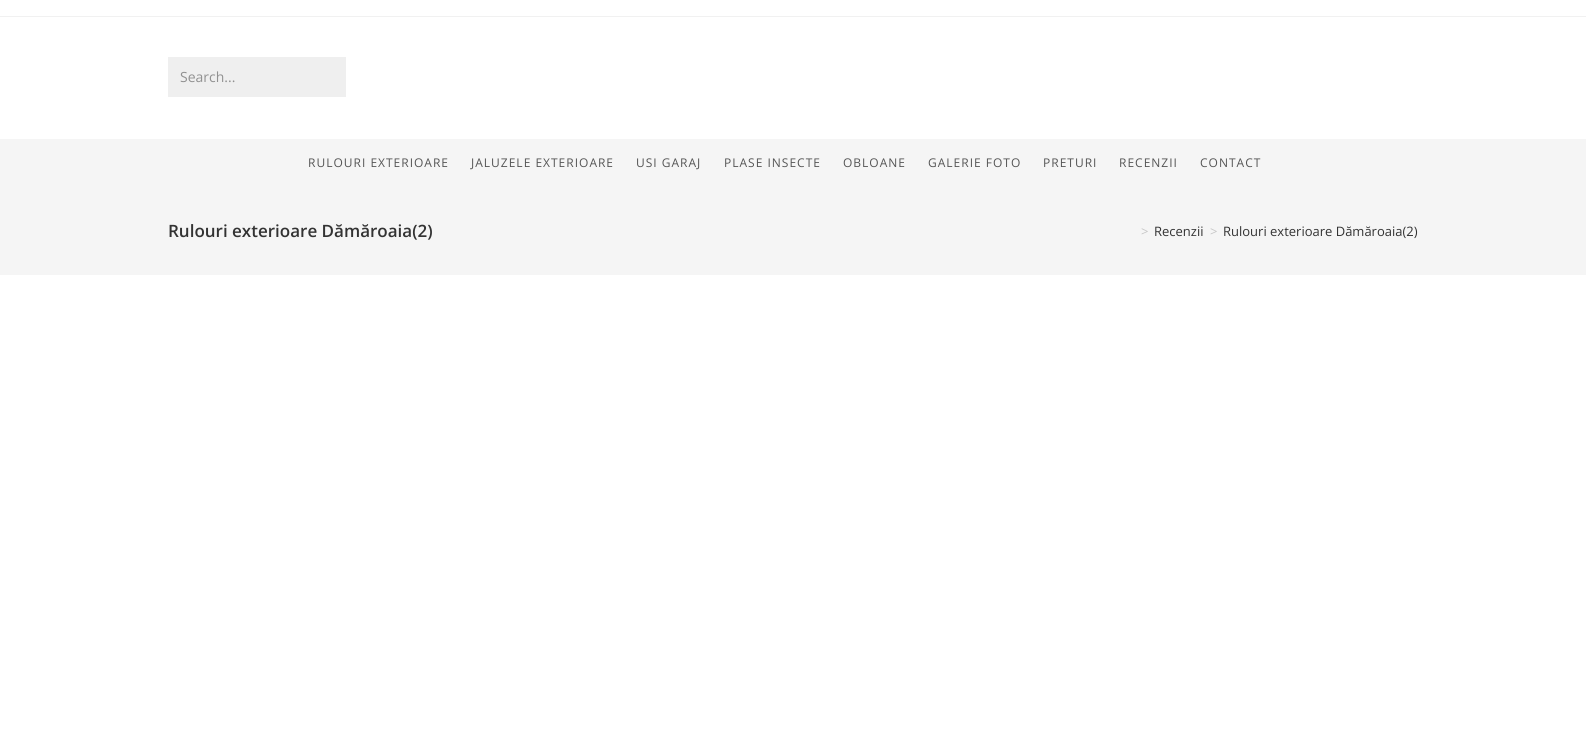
import math
import cairocffi as cairo

surface = cairo.ImageSurface(cairo.FORMAT_RGB24, 1586, 754)
ctx = cairo.Context(surface)
options = cairo.FontOptions()
options.set_hint_metrics(cairo.HINT_METRICS_OFF)
options.set_hint_style(cairo.HINT_STYLE_NONE)
ctx.set_font_options(options)
ctx.set_miter_limit(4)


def rgb(r, g, b):
    ctx.set_source_rgb(r / 255, g / 255, b / 255)


def face(family, size, italic, bold):
    ctx.select_font_face(family, cairo.FONT_SLANT_ITALIC if italic else cairo.FONT_SLANT_NORMAL, cairo.FONT_WEIGHT_BOLD if bold else cairo.FONT_WEIGHT_NORMAL)
    ctx.set_font_size(size)


def label(x, y, s):
    ctx.move_to(x, y)
    ctx.show_text(s)


def tracked(x, y, s, letter, word):
    ctx.move_to(x, y)
    for ch in s:
        ctx.show_text(ch)
        ctx.rel_move_to(letter + word * (ch == ' '), 0)


def rect(x, y, w, h):
    ctx.rectangle(x, y, w, h)
    ctx.fill()


rgb(255, 255, 255)
ctx.paint()
rgb(241, 241, 241)
rect(0, 16, 1586, 1)
rgb(239, 239, 239)
rect(168, 57, 178, 40)
face('Open Sans', 14, 0, 0)
rgb(145, 145, 145)
label(180, 82, 'Search...')
rgb(245, 245, 245)
rect(0, 139, 1586, 136)
face('Open Sans', 12, 0, 0)
rgb(85, 85, 85)
tracked(308, 167, 'RULOURI EXTERIOARE', 1, 0)
tracked(471, 167, 'JALUZELE EXTERIOARE', 1, 0)
tracked(636, 167, 'USI GARAJ', 1, 0)
tracked(724, 167, 'PLASE INSECTE', 1, 0)
tracked(843, 167, 'OBLOANE', 1, 0)
tracked(928, 167, 'GALERIE FOTO', 1, 0)
tracked(1043, 167, 'PRETURI', 1, 0)
tracked(1119, 167, 'RECENZII', 1, 0)
tracked(1200, 167, 'CONTACT', 1, 0)
face('Open Sans SemiBold', 17, 0, 0)
rgb(51, 51, 51)
label(168, 237, 'Rulouri exterioare Dămăroaia(2)')
face('Open Sans', 13, 0, 0)
rgb(198, 198, 198)
label(1141, 236, '>')
rgb(51, 51, 51)
label(1154, 236, 'Recenzii')
rgb(198, 198, 198)
label(1210, 236, '>')
rgb(51, 51, 51)
label(1223, 236, 'Rulouri exterioare Dămăroaia(2)')
surface.write_to_png('render.png')
